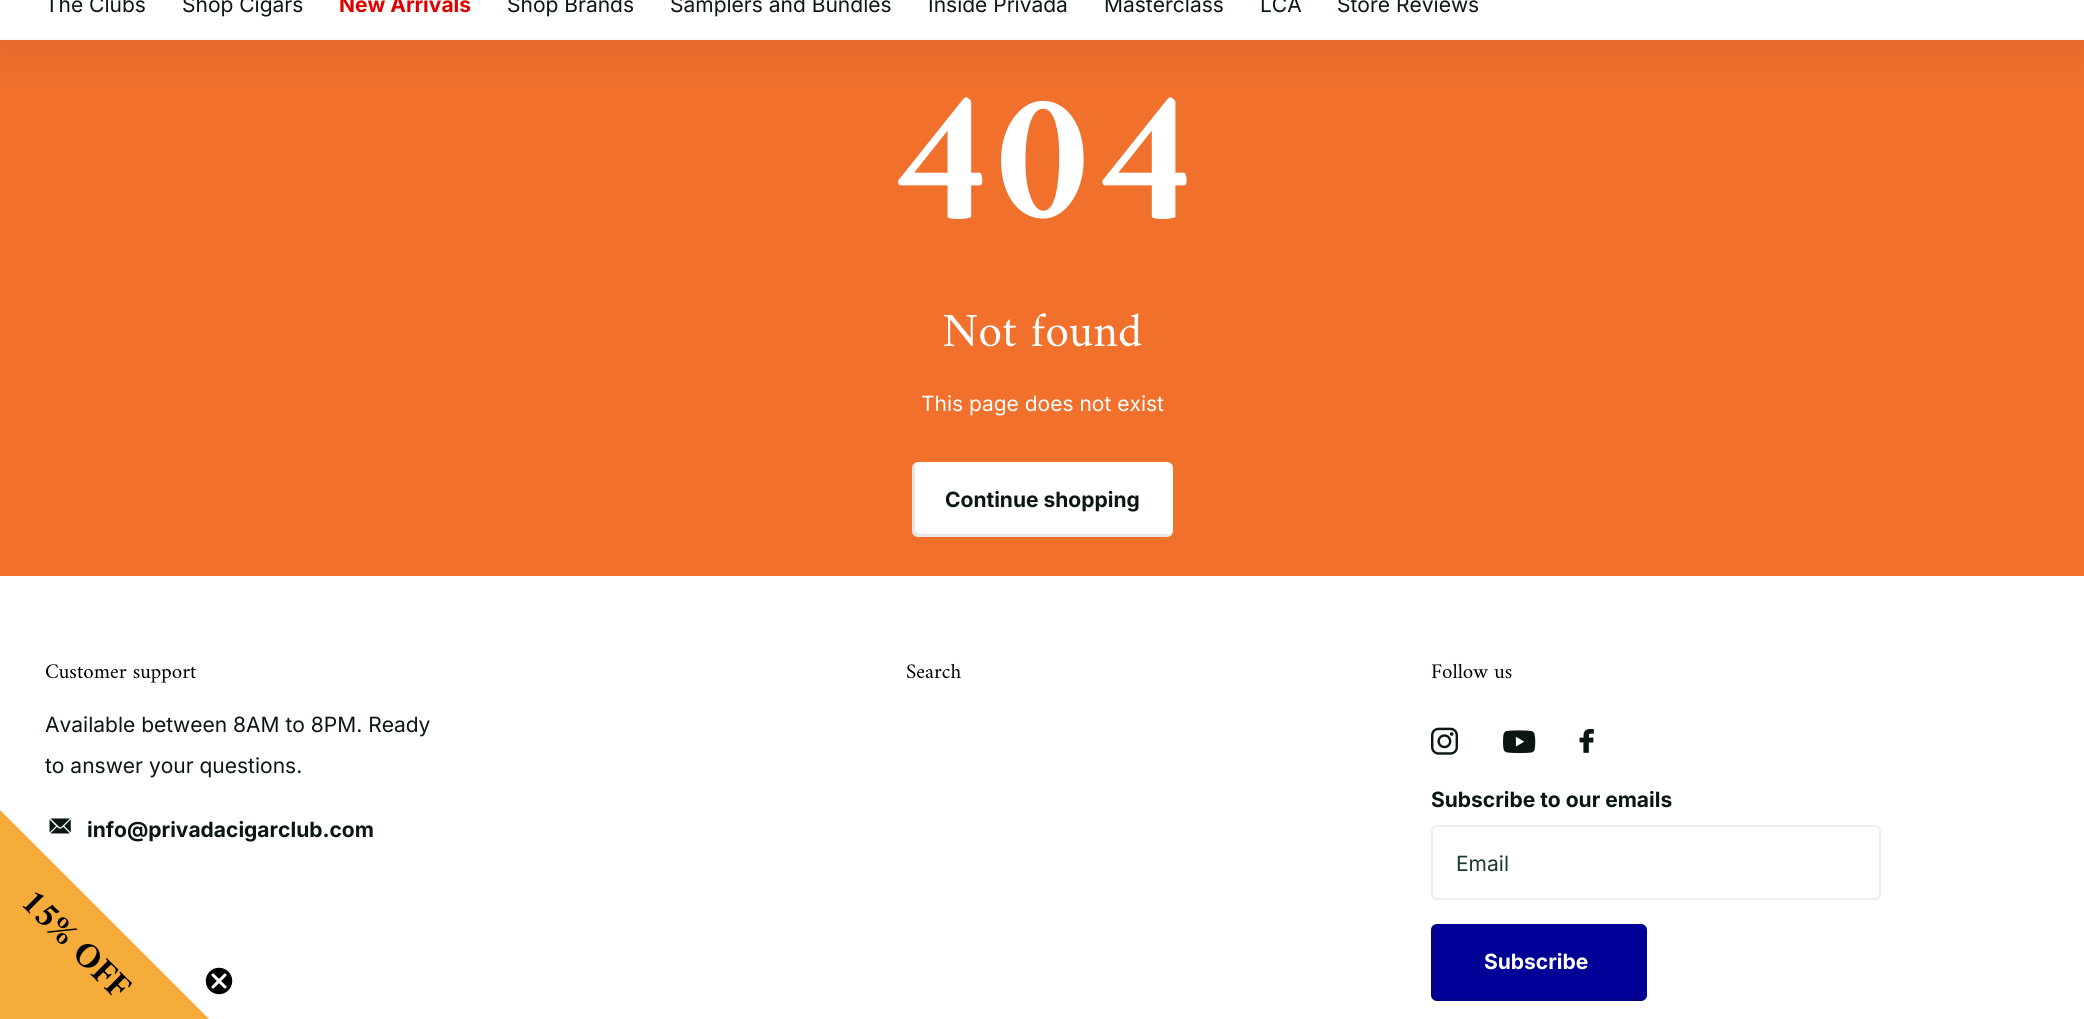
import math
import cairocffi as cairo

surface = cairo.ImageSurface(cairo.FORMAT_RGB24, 2084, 1019)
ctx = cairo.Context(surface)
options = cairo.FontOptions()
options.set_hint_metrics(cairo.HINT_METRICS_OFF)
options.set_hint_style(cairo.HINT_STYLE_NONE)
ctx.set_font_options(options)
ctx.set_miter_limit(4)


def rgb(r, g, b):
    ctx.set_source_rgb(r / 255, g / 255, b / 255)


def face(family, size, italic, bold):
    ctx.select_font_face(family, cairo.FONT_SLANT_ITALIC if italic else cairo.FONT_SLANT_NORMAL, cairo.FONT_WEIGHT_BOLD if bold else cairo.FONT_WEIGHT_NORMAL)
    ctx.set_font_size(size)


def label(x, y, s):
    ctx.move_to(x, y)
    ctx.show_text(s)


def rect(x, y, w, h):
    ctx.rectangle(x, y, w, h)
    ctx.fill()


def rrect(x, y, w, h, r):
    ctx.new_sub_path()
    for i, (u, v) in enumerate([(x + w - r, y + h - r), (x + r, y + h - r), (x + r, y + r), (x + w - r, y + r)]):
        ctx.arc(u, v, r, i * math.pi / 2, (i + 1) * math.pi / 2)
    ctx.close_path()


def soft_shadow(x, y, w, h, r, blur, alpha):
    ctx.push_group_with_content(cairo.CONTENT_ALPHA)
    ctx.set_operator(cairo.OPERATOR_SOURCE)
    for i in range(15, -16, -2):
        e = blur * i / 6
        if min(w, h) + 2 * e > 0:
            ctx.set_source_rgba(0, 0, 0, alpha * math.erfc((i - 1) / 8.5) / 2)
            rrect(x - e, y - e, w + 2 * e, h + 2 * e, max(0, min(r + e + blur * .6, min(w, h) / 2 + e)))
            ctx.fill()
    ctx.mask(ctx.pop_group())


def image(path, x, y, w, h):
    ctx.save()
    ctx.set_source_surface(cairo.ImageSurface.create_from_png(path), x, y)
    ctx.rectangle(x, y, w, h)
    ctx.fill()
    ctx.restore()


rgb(240, 112, 44)
ctx.paint()
rgb(0, 0, 0)
soft_shadow(0, -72, 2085, 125, 0, 24, 0.07)
rgb(250, 250, 250)
rect(0, 38, 2084, 2)
rgb(255, 255, 255)
rect(0, 0, 2084, 38)
face('Inter', 21, 0, 0)
rgb(11, 22, 19)
label(45, 12, 'The Clubs')
label(182, 12, 'Shop Cigars')
face('Inter', 21, 0, 1)
rgb(224, 0, 0)
label(339, 12, 'New Arrivals')
face('Inter', 21, 0, 0)
rgb(11, 22, 19)
label(507, 12, 'Shop Brands')
label(670, 12, 'Samplers and Bundles')
label(928, 12, 'Inside Privada')
label(1104, 12, 'Masterclass')
label(1260, 12, 'LCA')
label(1337, 12, 'Store Reviews')
face('Amiri', 192, 0, 1)
rgb(255, 255, 255)
label(889, 218, '404')
face('Amiri', 48, 0, 0)
label(942, 346, 'Not found')
face('Inter', 21, 0, 0)
label(921, 411, 'This page does not exist')
rrect(912, 462, 261, 75, 6)
ctx.fill()
ctx.set_source_rgba(0, 0, 0, 0.1)
ctx.new_path()
ctx.move_to(916, 462)
ctx.curve_to(914, 463, 912, 466, 912, 468)
ctx.line_to(912, 531)
ctx.curve_to(912, 534, 915, 537, 918, 537)
ctx.line_to(1167, 537)
ctx.curve_to(1169, 537, 1172, 535, 1173, 533)
ctx.line_to(1170, 534)
ctx.line_to(921, 534)
ctx.curve_to(918, 534, 915, 531, 915, 528)
ctx.line_to(915, 465)
ctx.close_path()
ctx.fill()
face('Inter', 21, 0, 1)
rgb(11, 22, 19)
label(945, 507, 'Continue shopping')
rgb(255, 255, 255)
rect(0, 576, 2084, 443)
face('Amiri', 21, 0, 0)
rgb(0, 0, 0)
label(45, 678, 'Customer support')
face('Inter', 21, 0, 0)
rgb(11, 22, 19)
label(45, 732, 'Available between 8AM to 8PM. Ready')
label(45, 773, 'to answer your questions.')
image('image0.png', 49, 818, 22, 16)
face('Inter', 21, 0, 1)
label(87, 837, 'info@privadacigarclub.com')
face('Amiri', 21, 0, 0)
rgb(0, 0, 0)
label(906, 678, 'Search')
label(1431, 678, 'Follow us')
image('image1.png', 1431, 727, 27, 28)
image('image2.png', 1503, 730, 33, 24)
image('image3.png', 1579, 729, 15, 24)
face('Inter', 21, 0, 1)
rgb(11, 22, 19)
label(1431, 807, 'Subscribe to our emails')
rrect(1432, 826, 448, 73, 5)
rgb(236, 237, 236)
ctx.stroke()
face('Inter', 21, 0, 0)
rgb(28, 56, 48)
label(1456, 871, 'Email')
rgb(0, 0, 150)
rrect(1431, 924, 216, 77, 6)
ctx.fill()
ctx.set_source_rgba(0, 0, 0, 0.1)
ctx.new_path()
ctx.move_to(1435, 924)
ctx.curve_to(1433, 925, 1431, 928, 1431, 930)
ctx.line_to(1431, 995)
ctx.curve_to(1431, 998, 1434, 1001, 1437, 1001)
ctx.line_to(1641, 1001)
ctx.curve_to(1643, 1001, 1646, 999, 1647, 997)
ctx.line_to(1644, 998)
ctx.line_to(1440, 998)
ctx.curve_to(1437, 998, 1434, 995, 1434, 992)
ctx.line_to(1434, 927)
ctx.close_path()
ctx.fill()
face('Inter', 21, 0, 1)
rgb(255, 255, 255)
label(1484, 969, 'Subscribe')
rgb(246, 172, 58)
ctx.new_path()
ctx.move_to(0, 810)
ctx.line_to(0, 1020)
ctx.line_to(210, 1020)
ctx.close_path()
ctx.fill()
face('Amiri', 36, 0, 1)
rgb(0, 0, 0)
ctx.save()
ctx.translate(19, 903)
ctx.rotate(45 * math.pi / 180)
label(0, 0, '15% OFF')
ctx.restore()
ctx.new_path()
ctx.arc(219, 981, 14, 0, 2 * math.pi)
ctx.fill_preserve()
rgb(255, 255, 255)
ctx.set_line_width(1.5)
ctx.stroke()
ctx.new_path()
ctx.move_to(213, 975)
ctx.line_to(225, 987)
ctx.move_to(213, 987)
ctx.line_to(225, 975)
ctx.close_path()
ctx.set_line_width(3)
ctx.set_line_cap(cairo.LINE_CAP_ROUND)
ctx.set_line_join(cairo.LINE_JOIN_ROUND)
ctx.stroke()
surface.write_to_png('render.png')
